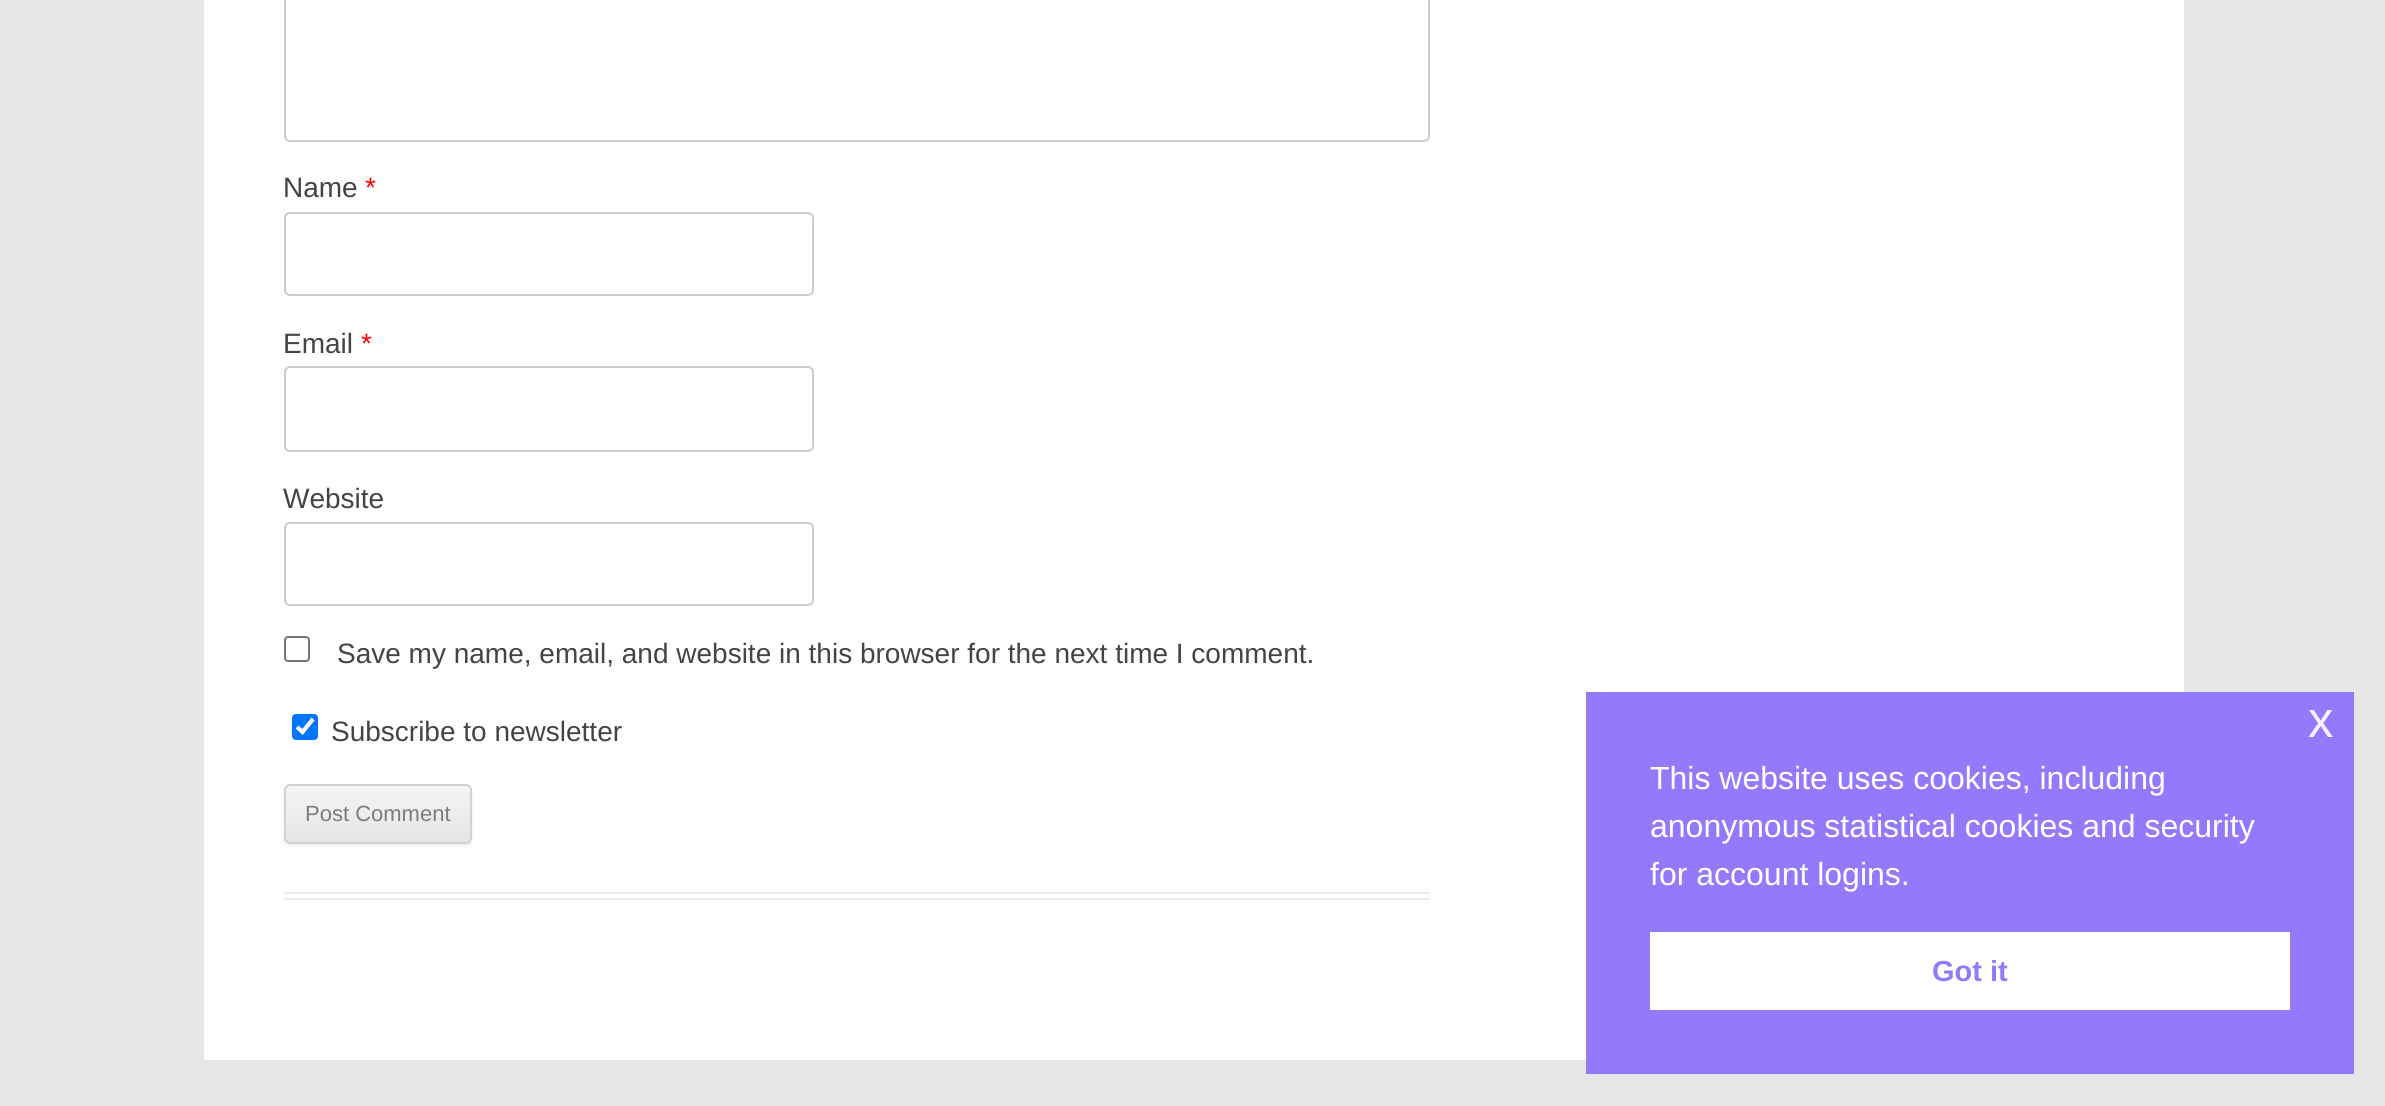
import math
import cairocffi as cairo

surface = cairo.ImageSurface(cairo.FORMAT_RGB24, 2385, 1106)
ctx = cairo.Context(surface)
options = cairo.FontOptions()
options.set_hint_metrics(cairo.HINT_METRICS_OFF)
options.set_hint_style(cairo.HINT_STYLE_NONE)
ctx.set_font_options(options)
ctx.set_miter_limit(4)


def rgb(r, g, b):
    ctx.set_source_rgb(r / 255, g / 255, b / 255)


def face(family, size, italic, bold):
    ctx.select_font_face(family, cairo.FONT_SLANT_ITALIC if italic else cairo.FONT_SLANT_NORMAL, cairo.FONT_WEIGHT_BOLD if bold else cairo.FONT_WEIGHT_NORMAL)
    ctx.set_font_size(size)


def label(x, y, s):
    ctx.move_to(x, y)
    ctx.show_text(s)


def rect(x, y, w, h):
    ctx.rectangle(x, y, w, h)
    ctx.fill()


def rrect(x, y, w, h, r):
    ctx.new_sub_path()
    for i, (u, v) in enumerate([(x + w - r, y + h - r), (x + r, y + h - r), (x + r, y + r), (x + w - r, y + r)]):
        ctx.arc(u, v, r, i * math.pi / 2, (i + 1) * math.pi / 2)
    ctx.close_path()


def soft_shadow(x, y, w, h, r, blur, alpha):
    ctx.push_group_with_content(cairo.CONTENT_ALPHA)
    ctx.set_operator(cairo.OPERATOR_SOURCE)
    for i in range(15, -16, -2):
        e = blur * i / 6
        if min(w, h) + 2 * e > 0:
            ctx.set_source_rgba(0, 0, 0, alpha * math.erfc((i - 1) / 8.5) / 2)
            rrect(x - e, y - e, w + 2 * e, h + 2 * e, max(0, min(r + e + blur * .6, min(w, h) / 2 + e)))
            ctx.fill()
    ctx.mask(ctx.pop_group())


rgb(230, 230, 230)
ctx.paint()
rgb(255, 255, 255)
rect(204, 0, 1980, 1060)
rgb(237, 237, 237)
rect(284, 892, 1146, 2)
rect(284, 898, 1146, 2)
rrect(285, -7, 1144, 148, 5)
rgb(204, 204, 204)
ctx.stroke()
face('Liberation Sans', 28, 0, 0)
rgb(68, 68, 68)
label(283, 197, 'Name')
rgb(255, 0, 0)
label(365, 197, '*')
rrect(285, 213, 528, 82, 5)
rgb(204, 204, 204)
ctx.stroke()
rgb(68, 68, 68)
label(283, 353, 'Email')
rgb(255, 0, 0)
label(361, 353, '*')
rrect(285, 367, 528, 84, 5)
rgb(204, 204, 204)
ctx.stroke()
rgb(68, 68, 68)
label(283, 508, 'Website')
rrect(285, 523, 528, 82, 5)
rgb(204, 204, 204)
ctx.stroke()
rrect(285, 637, 24, 24, 3)
rgb(118, 118, 118)
ctx.stroke()
rgb(68, 68, 68)
label(337, 663, 'Save my name, email, and website in this browser for the next time I comment.')
rgb(0, 117, 255)
rrect(292, 714, 26, 26, 4)
ctx.fill()
ctx.new_path()
ctx.move_to(297, 727)
ctx.line_to(302.5, 732)
ctx.line_to(313, 719)
rgb(255, 255, 255)
ctx.set_line_width(4.2)
ctx.stroke()
rgb(68, 68, 68)
label(331, 741, 'Subscribe to newsletter')
rgb(64, 64, 64)
soft_shadow(284, 786, 188, 60, 6, 2, 0.1)
ctx.save()
rrect(284, 784, 188, 60, 6)
ctx.clip()
gradient = cairo.LinearGradient(378, 786, 378, 842)
gradient.add_color_stop_rgba(0, 0.957, 0.957, 0.957, 1)
gradient.add_color_stop_rgba(1, 0.902, 0.902, 0.902, 1)
ctx.set_source(gradient)
rect(284, 786, 188, 56)
ctx.restore()
rrect(285, 785, 186, 58, 5)
rgb(210, 210, 210)
ctx.set_line_width(2)
ctx.stroke()
face('Liberation Sans', 22, 0, 0)
rgb(124, 124, 124)
label(305, 821, 'Post Comment')
rgb(147, 122, 252)
rect(1586, 692, 768, 382)
face('Liberation Sans', 51, 0, 0)
rgb(244, 242, 255)
label(2308, 737, 'x')
face('Liberation Sans', 32, 0, 0)
rgb(255, 255, 255)
label(1650, 789, 'This website uses cookies, including')
label(1650, 837, 'anonymous statistical cookies and security')
label(1650, 885, 'for account logins.')
rect(1650, 932, 640, 78)
face('Liberation Sans', 29, 0, 1)
rgb(147, 122, 252)
label(1932, 981, 'Got it')
surface.write_to_png('render.png')
